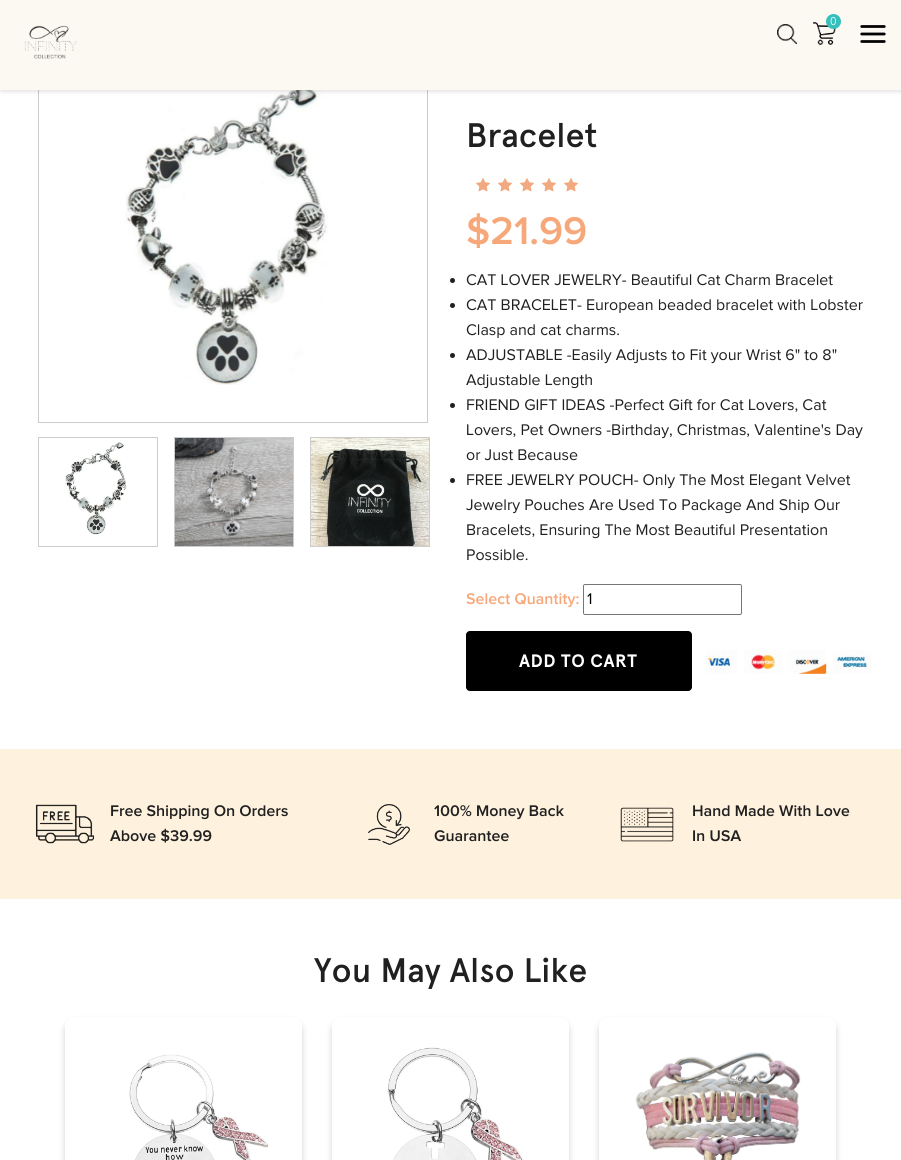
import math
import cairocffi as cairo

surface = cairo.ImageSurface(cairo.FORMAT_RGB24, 901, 1160)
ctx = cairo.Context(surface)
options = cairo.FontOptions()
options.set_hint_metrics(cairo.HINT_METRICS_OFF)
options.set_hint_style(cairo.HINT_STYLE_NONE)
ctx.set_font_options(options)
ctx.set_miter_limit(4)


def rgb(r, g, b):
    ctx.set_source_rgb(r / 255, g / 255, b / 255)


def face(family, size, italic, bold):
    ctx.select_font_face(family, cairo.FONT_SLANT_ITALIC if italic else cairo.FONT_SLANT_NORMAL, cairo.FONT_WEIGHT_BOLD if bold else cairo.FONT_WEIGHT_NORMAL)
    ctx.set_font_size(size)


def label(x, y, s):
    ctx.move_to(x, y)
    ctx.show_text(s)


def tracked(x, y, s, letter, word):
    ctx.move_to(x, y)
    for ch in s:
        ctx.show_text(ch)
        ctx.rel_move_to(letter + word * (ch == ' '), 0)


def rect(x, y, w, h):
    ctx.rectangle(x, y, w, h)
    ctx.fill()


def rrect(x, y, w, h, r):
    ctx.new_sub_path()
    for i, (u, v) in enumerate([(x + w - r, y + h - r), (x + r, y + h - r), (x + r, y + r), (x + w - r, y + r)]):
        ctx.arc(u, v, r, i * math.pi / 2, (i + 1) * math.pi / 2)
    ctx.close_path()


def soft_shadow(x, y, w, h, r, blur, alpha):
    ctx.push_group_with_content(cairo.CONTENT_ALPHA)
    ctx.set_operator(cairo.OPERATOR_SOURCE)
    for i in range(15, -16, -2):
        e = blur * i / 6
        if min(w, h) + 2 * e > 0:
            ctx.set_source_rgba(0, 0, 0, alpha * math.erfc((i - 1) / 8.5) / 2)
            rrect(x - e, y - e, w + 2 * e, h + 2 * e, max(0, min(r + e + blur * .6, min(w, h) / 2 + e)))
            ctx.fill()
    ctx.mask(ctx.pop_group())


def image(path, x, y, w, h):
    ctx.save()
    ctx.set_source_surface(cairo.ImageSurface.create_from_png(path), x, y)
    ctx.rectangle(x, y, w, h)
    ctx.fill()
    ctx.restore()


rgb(255, 255, 255)
ctx.paint()
image('image4.png', 125, 90, 203, 295)
ctx.rectangle(38.5, 70.5, 389, 352)
rgb(204, 204, 204)
ctx.set_line_width(1)
ctx.stroke()
rgb(0, 0, 0)
soft_shadow(1, 0, 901, 90, 0, 3, 0.2)
rgb(252, 249, 243)
rect(0, 0, 901, 90)
image('image0.png', 813, 22, 23, 23)
rgb(53, 192, 187)
ctx.arc(833.5, 21.5, 7.5, 0, 2 * math.pi)
ctx.fill()
face('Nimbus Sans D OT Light', 12, 0, 0)
rgb(255, 255, 255)
label(830, 25, '0')
image('image1.png', 777, 24, 20, 20)
image('image2.png', 24, 25, 53, 34)
image('image3.png', 860, 25, 26, 18)
image('image5.png', 65, 442, 62, 93)
ctx.rectangle(38.5, 437.5, 119, 109)
rgb(204, 204, 204)
ctx.stroke()
image('image6.png', 175, 438, 118, 108)
ctx.rectangle(174.5, 437.5, 119, 109)
ctx.stroke()
image('image7.png', 311, 438, 118, 108)
ctx.rectangle(310.5, 437.5, 119, 109)
ctx.stroke()
face('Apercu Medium', 34, 0, 0)
rgb(32, 32, 32)
label(466, 147, 'Bracelet')
image('image8.png', 476, 178, 14, 14)
image('image8.png', 498, 178, 14, 14)
image('image8.png', 520, 178, 14, 14)
image('image8.png', 542, 178, 14, 14)
image('image8.png', 564, 178, 14, 14)
image('image9.png', 467, 213, 119, 35)
ctx.arc(452.5, 280.5, 2.5, 0, 2 * math.pi)
ctx.fill()
face('Proxima Nova', 16, 0, 0)
label(466, 285, 'CAT LOVER JEWELRY- Beautiful Cat Charm Bracelet')
ctx.new_path()
ctx.arc(452.5, 305.5, 2.5, 0, 2 * math.pi)
ctx.fill()
label(466, 310, 'CAT BRACELET- European beaded bracelet with Lobster')
label(466, 335, 'Clasp and cat charms.')
ctx.new_path()
ctx.arc(452.5, 355.5, 2.5, 0, 2 * math.pi)
ctx.fill()
label(466, 360, 'ADJUSTABLE -Easily Adjusts to Fit your Wrist 6" to 8"')
label(466, 385, 'Adjustable Length')
ctx.new_path()
ctx.arc(452.5, 405.5, 2.5, 0, 2 * math.pi)
ctx.fill()
label(466, 410, 'FRIEND GIFT IDEAS -Perfect Gift for Cat Lovers, Cat')
label(466, 435, 'Lovers, Pet Owners -Birthday, Christmas, Valentine\'s Day')
label(466, 460, 'or Just Because')
ctx.new_path()
ctx.arc(452.5, 480.5, 2.5, 0, 2 * math.pi)
ctx.fill()
label(466, 485, 'FREE JEWELRY POUCH- Only The Most Elegant Velvet')
label(466, 510, 'Jewelry Pouches Are Used To Package And Ship Our')
label(466, 535, 'Bracelets, Ensuring The Most Beautiful Presentation')
label(466, 560, 'Possible.')
image('image10.png', 466, 593, 113, 15)
rrect(583.5, 584.5, 158, 30, 1.5)
rgb(118, 118, 118)
ctx.stroke()
rgb(0, 0, 0)
label(587, 604, '1')
rrect(466.5, 631.5, 225, 59, 3.5)
ctx.fill_preserve()
ctx.stroke()
face('Apercu', 18, 0, 1)
rgb(255, 255, 255)
tracked(519, 667, 'ADD TO CART', 0.5, 0)
image('image11.png', 706, 650, 165, 24)
rgb(254, 242, 223)
rect(0, 749, 901, 150)
image('image12.png', 35, 804, 60, 40)
image('image13.png', 111, 805, 177, 15)
image('image14.png', 110, 828, 102, 15)
image('image15.png', 368, 804, 42, 41)
image('image16.png', 434, 805, 130, 15)
image('image17.png', 434, 830, 75, 12)
image('image18.png', 620, 807, 54, 35)
image('image19.png', 693, 805, 157, 12)
image('image20.png', 693, 830, 49, 12)
face('Apercu Medium', 34, 0, 0)
rgb(32, 32, 32)
label(314, 982, 'You May Also Like')
ctx.save()
ctx.set_fill_rule(cairo.FILL_RULE_EVEN_ODD)
ctx.new_path()
ctx.move_to(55, 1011)
ctx.line_to(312, 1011)
ctx.line_to(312, 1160)
ctx.line_to(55, 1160)
ctx.close_path()
ctx.move_to(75, 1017)
ctx.line_to(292, 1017)
ctx.curve_to(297.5, 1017, 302, 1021.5, 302, 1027)
ctx.line_to(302, 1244)
ctx.curve_to(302, 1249.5, 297.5, 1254, 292, 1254)
ctx.line_to(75, 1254)
ctx.curve_to(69.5, 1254, 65, 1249.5, 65, 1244)
ctx.line_to(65, 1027)
ctx.curve_to(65, 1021.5, 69.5, 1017, 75, 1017)
ctx.close_path()
ctx.clip()
rgb(198, 196, 196)
soft_shadow(65, 1021, 237, 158, 10, 3, 0.77)
ctx.restore()
image('image21.png', 129, 1054, 140, 106)
ctx.save()
ctx.set_fill_rule(cairo.FILL_RULE_EVEN_ODD)
ctx.new_path()
ctx.move_to(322, 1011)
ctx.line_to(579, 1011)
ctx.line_to(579, 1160)
ctx.line_to(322, 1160)
ctx.close_path()
ctx.move_to(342, 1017)
ctx.line_to(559, 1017)
ctx.curve_to(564.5, 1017, 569, 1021.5, 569, 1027)
ctx.line_to(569, 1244)
ctx.curve_to(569, 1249.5, 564.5, 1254, 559, 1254)
ctx.line_to(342, 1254)
ctx.curve_to(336.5, 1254, 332, 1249.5, 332, 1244)
ctx.line_to(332, 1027)
ctx.curve_to(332, 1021.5, 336.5, 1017, 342, 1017)
ctx.close_path()
ctx.clip()
rgb(198, 196, 196)
soft_shadow(332, 1021, 237, 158, 10, 3, 0.77)
ctx.restore()
image('image22.png', 388, 1047, 136, 113)
ctx.save()
ctx.set_fill_rule(cairo.FILL_RULE_EVEN_ODD)
ctx.new_path()
ctx.move_to(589, 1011)
ctx.line_to(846, 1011)
ctx.line_to(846, 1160)
ctx.line_to(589, 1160)
ctx.close_path()
ctx.move_to(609, 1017)
ctx.line_to(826, 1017)
ctx.curve_to(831.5, 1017, 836, 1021.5, 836, 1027)
ctx.line_to(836, 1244)
ctx.curve_to(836, 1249.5, 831.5, 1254, 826, 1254)
ctx.line_to(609, 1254)
ctx.curve_to(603.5, 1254, 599, 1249.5, 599, 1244)
ctx.line_to(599, 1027)
ctx.curve_to(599, 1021.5, 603.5, 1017, 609, 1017)
ctx.close_path()
ctx.clip()
rgb(198, 196, 196)
soft_shadow(599, 1021, 237, 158, 10, 3, 0.77)
ctx.restore()
image('image23.png', 635, 1052, 166, 108)
surface.write_to_png('render.png')
